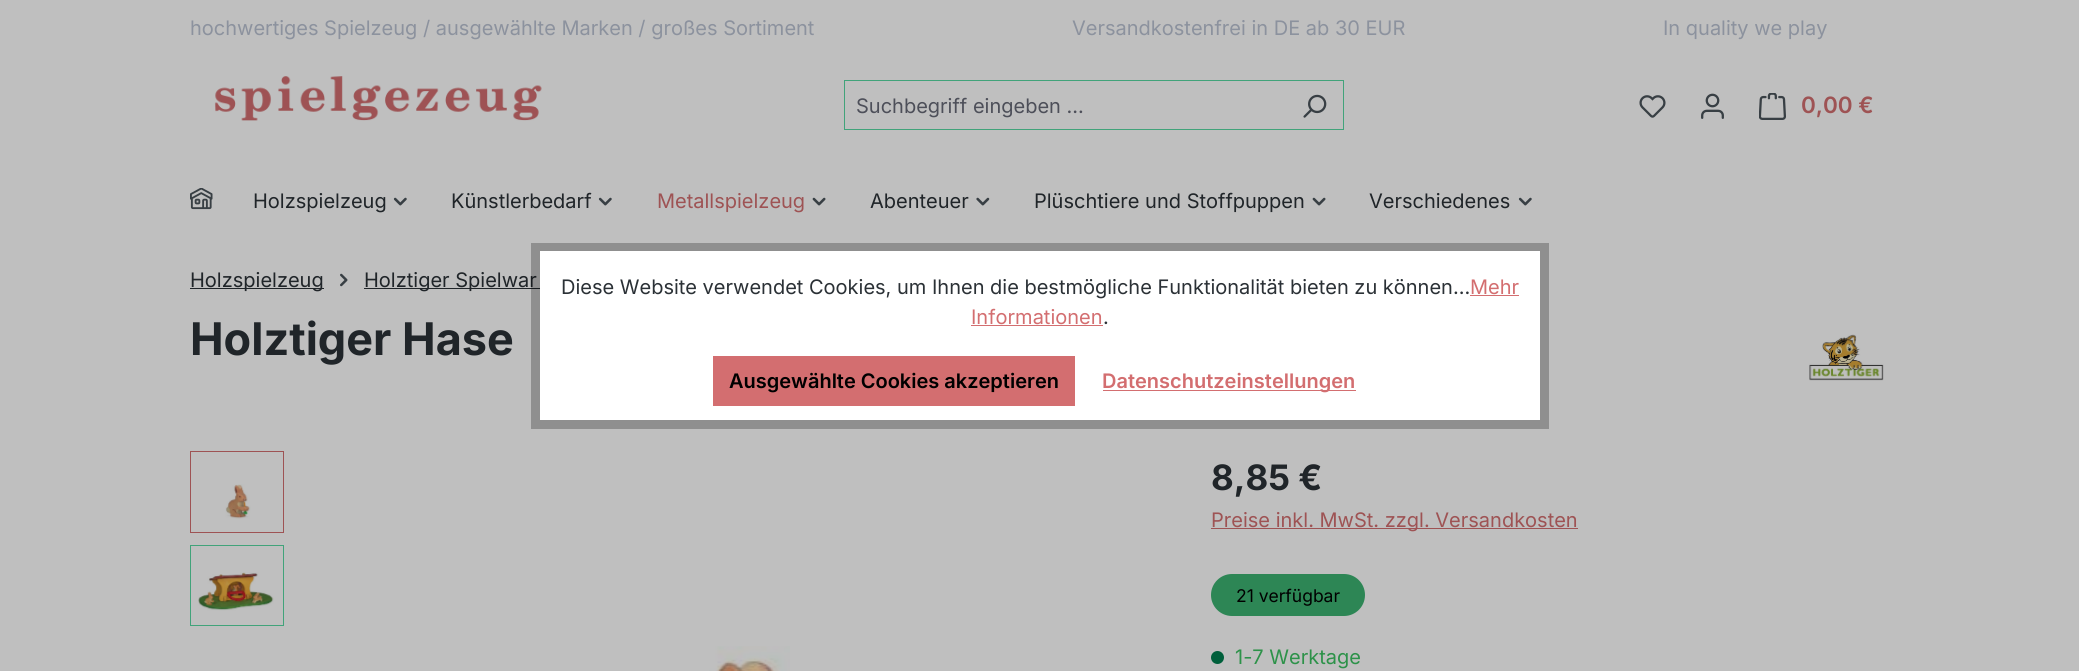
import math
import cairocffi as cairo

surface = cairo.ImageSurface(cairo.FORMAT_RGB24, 2079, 671)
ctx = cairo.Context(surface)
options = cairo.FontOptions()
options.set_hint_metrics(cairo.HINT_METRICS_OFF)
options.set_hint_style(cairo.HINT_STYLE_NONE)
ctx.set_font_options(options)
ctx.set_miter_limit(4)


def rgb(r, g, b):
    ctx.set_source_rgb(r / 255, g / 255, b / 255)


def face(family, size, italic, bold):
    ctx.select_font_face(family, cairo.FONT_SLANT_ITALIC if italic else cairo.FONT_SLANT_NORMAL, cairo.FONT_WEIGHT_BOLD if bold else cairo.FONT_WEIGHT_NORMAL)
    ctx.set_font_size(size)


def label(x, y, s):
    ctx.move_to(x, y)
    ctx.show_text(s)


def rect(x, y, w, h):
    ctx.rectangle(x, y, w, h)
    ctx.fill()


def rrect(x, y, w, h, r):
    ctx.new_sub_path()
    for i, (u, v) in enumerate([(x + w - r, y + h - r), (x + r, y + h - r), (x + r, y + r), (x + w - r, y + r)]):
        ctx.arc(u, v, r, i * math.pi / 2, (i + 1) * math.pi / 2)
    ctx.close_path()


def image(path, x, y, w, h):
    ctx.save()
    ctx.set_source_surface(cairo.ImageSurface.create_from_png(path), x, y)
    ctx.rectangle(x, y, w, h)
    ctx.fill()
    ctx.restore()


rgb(191, 191, 191)
ctx.paint()
face('Inter', 20, 0, 0)
rgb(140, 146, 158)
label(190, 35, 'hochwertiges Spielzeug / ausgewählte Marken / großes Sortiment')
label(1072, 35, 'Versandkostenfrei in DE ab 30 EUR')
label(1663, 35, 'In quality we play')
image('image0.png', 214, 76, 328, 45)
rgb(65, 163, 122)
rect(844, 80, 500, 1)
rect(844, 129, 442, 1)
rect(844, 80, 1, 50)
rgb(77, 79, 89)
label(856, 113, 'Suchbegriff eingeben ...')
rgb(65, 163, 122)
rect(1343, 80, 1, 50)
rect(1285, 129, 59, 1)
image('image1.png', 1303, 94, 24, 24)
image('image2.png', 1639, 95, 27, 23)
image('image3.png', 1701, 93, 23, 26)
image('image4.png', 1759, 93, 27, 27)
face('Inter SemiBold', 22.5, 0, 0)
rgb(158, 83, 84)
label(1801, 113, '0,00 €')
image('image5.png', 190, 188, 23, 22)
face('Inter', 20, 0, 0)
rgb(32, 37, 41)
label(253, 208, 'Holzspielzeug')
image('image6.png', 393, 197, 14, 9)
label(451, 208, 'Künstlerbedarf')
image('image6.png', 598, 197, 14, 9)
rgb(158, 83, 84)
label(657, 208, 'Metallspielzeug')
image('image7.png', 812, 197, 14, 9)
rgb(32, 37, 41)
label(870, 208, 'Abenteuer')
image('image8.png', 976, 197, 14, 9)
label(1034, 208, 'Plüschtiere und Stoffpuppen')
image('image7.png', 1312, 197, 14, 9)
label(1369, 208, 'Verschiedenes')
image('image6.png', 1518, 197, 14, 9)
rect(190, 288, 134, 1)
label(190, 287, 'Holzspielzeug')
image('image9.png', 340, 273, 8, 14)
rect(364, 288, 176, 1)
label(364, 287, 'Holztiger Spielwar')
face('Inter', 45, 0, 1)
label(190, 355, 'Holztiger Hase')
image('image10.png', 1809, 334, 75, 47)
ctx.rectangle(190.5, 451.5, 93, 81)
rgb(158, 83, 84)
ctx.set_line_width(1)
ctx.stroke()
image('image11.png', 225, 484, 26, 35)
ctx.rectangle(190.5, 545.5, 93, 80)
rgb(65, 163, 122)
ctx.stroke()
image('image12.png', 198, 572, 76, 39)
image('image13.png', 709, 646, 81, 25)
face('Inter', 35, 0, 1)
rgb(32, 37, 41)
label(1211, 490, '8,85 €')
rgb(158, 83, 84)
rect(1211, 528, 367, 1)
face('Inter', 20, 0, 0)
label(1211, 527, 'Preise inkl. MwSt. zzgl. Versandkosten')
rgb(45, 134, 85)
rrect(1211, 574, 154, 42, 21)
ctx.fill()
face('Inter', 17.5, 0, 0)
rgb(0, 0, 0)
label(1236, 602, '21 verfügbar')
rgb(0, 95, 59)
ctx.new_path()
ctx.arc(1217.5, 657.5, 6.5, 0, 2 * math.pi)
ctx.fill()
face('Inter', 20, 0, 0)
rgb(45, 146, 73)
label(1235, 664, '1-7 Werktage')
ctx.rectangle(535.5, 247.5, 1009, 177)
ctx.set_source_rgba(0, 0, 0, 0.25)
ctx.set_line_width(9)
ctx.stroke()
rgb(255, 255, 255)
rect(540, 251, 1000, 169)
rgb(43, 49, 54)
label(561, 294, 'Diese Website verwendet Cookies, um Ihnen die bestmögliche Funktionalität bieten zu können...')
rgb(211, 110, 112)
label(1470, 294, 'Mehr')
rect(1470, 295, 49, 1)
label(971, 324, 'Informationen')
rect(971, 325, 132, 1)
rgb(43, 49, 54)
label(1103, 324, '.')
rgb(211, 110, 112)
rect(713, 356, 362, 50)
face('Inter SemiBold', 20, 0, 0)
rgb(0, 0, 0)
label(729, 388, 'Ausgewählte Cookies akzeptieren')
rgb(211, 110, 112)
rect(1103, 390, 253, 1)
label(1102, 388, 'Datenschutzeinstellungen')
surface.write_to_png('render.png')
